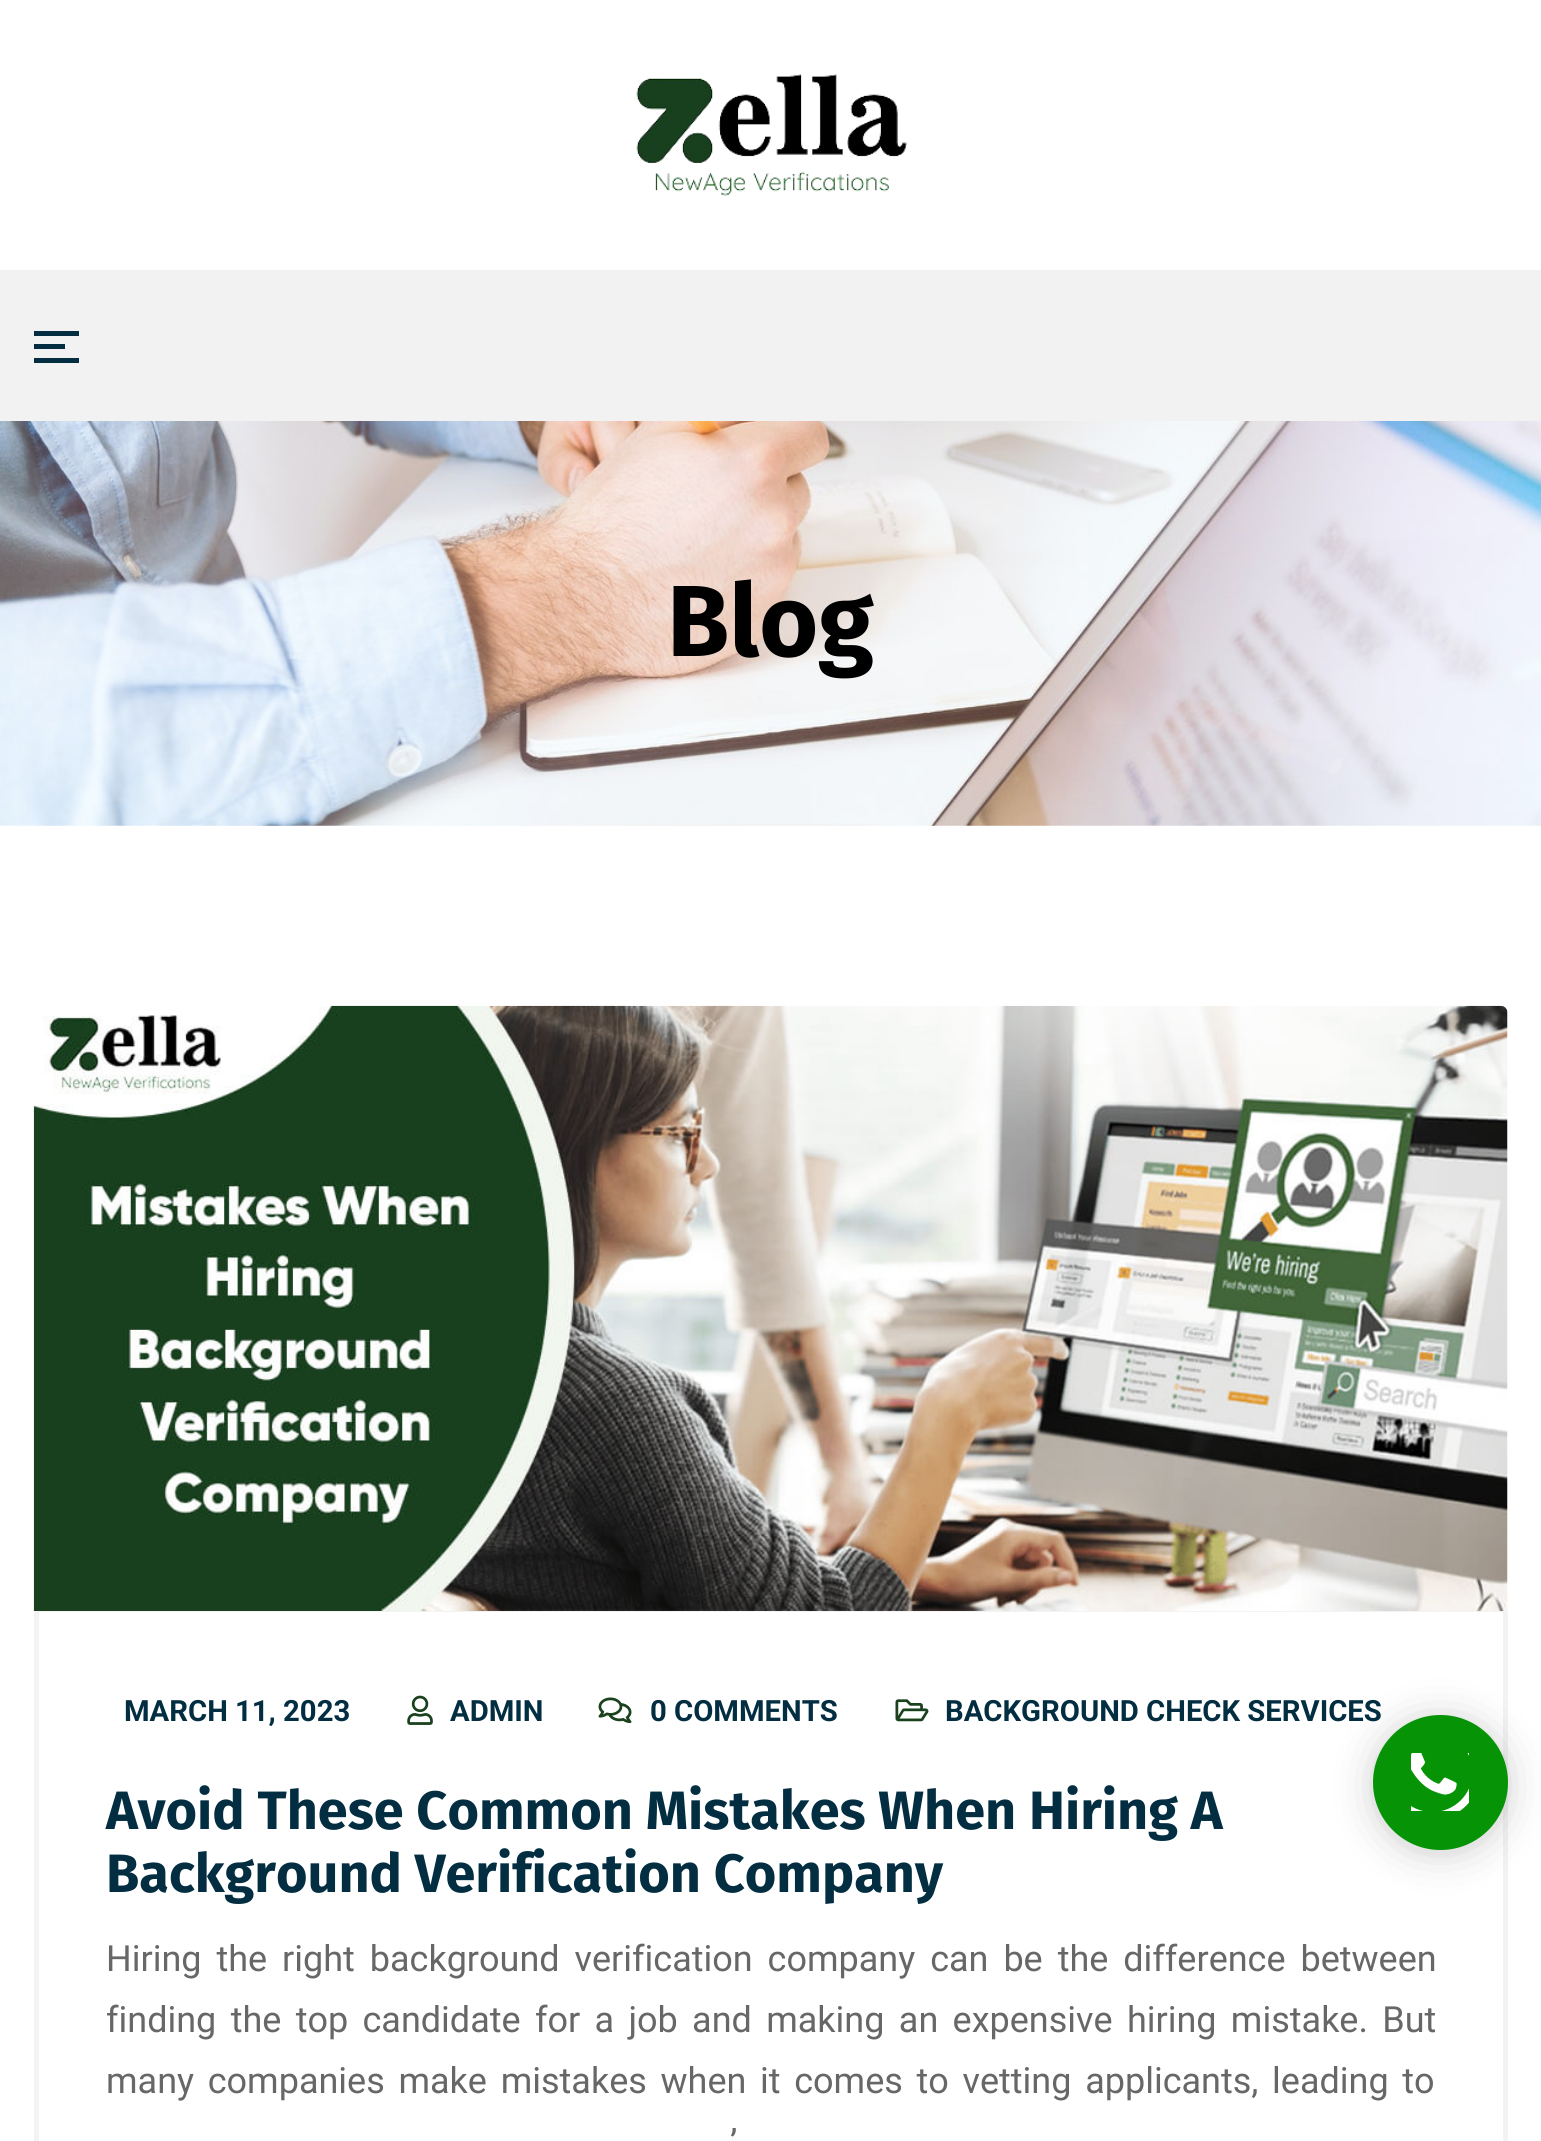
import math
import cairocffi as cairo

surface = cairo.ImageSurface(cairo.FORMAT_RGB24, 1541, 2141)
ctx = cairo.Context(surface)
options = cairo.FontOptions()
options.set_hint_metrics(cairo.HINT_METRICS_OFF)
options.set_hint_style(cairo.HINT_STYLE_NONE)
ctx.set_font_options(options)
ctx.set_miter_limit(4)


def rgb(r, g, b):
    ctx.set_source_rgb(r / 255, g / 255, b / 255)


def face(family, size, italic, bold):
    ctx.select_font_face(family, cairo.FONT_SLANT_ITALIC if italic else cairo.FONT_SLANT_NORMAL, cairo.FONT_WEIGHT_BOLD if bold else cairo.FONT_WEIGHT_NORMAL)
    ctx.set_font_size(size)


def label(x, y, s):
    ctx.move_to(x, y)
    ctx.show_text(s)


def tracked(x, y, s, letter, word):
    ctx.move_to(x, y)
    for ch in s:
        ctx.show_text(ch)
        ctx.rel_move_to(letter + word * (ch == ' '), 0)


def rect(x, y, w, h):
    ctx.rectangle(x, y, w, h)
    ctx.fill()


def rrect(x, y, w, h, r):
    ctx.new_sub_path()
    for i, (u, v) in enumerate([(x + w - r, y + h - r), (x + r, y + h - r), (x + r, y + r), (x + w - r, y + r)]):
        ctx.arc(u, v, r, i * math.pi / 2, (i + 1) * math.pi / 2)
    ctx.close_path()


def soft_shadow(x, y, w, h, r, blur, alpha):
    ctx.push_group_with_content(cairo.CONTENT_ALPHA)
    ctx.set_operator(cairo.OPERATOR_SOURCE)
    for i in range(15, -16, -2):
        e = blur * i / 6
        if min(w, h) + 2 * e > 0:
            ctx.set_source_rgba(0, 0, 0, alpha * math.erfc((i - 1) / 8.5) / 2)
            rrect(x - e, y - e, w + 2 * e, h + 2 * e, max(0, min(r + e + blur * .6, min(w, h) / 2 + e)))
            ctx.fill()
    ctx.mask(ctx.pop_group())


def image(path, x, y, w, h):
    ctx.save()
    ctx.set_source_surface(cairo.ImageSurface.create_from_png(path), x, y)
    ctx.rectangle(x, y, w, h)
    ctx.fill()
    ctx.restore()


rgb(255, 255, 255)
ctx.paint()
image('image0.png', 636, 74, 271, 122)
rgb(242, 242, 242)
rect(0, 270, 1541, 151)
rgb(3, 46, 66)
rect(34, 331, 45, 5)
rect(34, 344, 31, 5)
rect(34, 358, 45, 5)
image('image1.png', 0, 421, 1541, 405)
face('Fira Sans', 101, 0, 1)
rgb(0, 0, 0)
label(667, 656, 'Blog')
rrect(36.5, 1609.5, 1469, 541, 4.5)
rgb(243, 243, 243)
ctx.set_line_width(5)
ctx.stroke()
image('image2.png', 33, 1005, 1475, 606)
face('Roboto', 29.25, 0, 1)
rgb(3, 46, 66)
label(124, 1721, 'MARCH 11, 2023')
image('image3.png', 407, 1695, 26, 30)
label(450, 1721, 'ADMIN')
image('image4.png', 598, 1697, 34, 27)
label(650, 1721, '0 COMMENTS')
image('image5.png', 895, 1699, 34, 23)
label(945, 1721, 'BACKGROUND CHECK SERVICES')
face('Fira Sans', 54, 0, 1)
label(106, 1829, 'Avoid These Common Mistakes When Hiring A')
label(106, 1892, 'Background Verification Company')
face('Roboto', 36, 0, 0)
rgb(103, 103, 103)
tracked(106, 1971, 'Hiring the right background verification company can be the difference between', 0, 6)
tracked(106, 2032, 'finding the top candidate for a job and making an expensive hiring mistake. But', 0, 5.4)
tracked(106, 2093, 'many companies make mistakes when it comes to vetting applicants, leading to', 0, 4.75)
label(730, 2155, '’')
rgb(0, 0, 0)
soft_shadow(1373, 1719, 135, 135, 67.5, 22.5, 0.16)
soft_shadow(1373, 1717, 135, 135, 67.5, 7, 0.06)
rgb(6, 148, 6)
ctx.arc(1440.5, 1782.5, 67.5, 0, 2 * math.pi)
ctx.fill()
image('image6.png', 1411, 1753, 58, 58)
surface.write_to_png('render.png')
